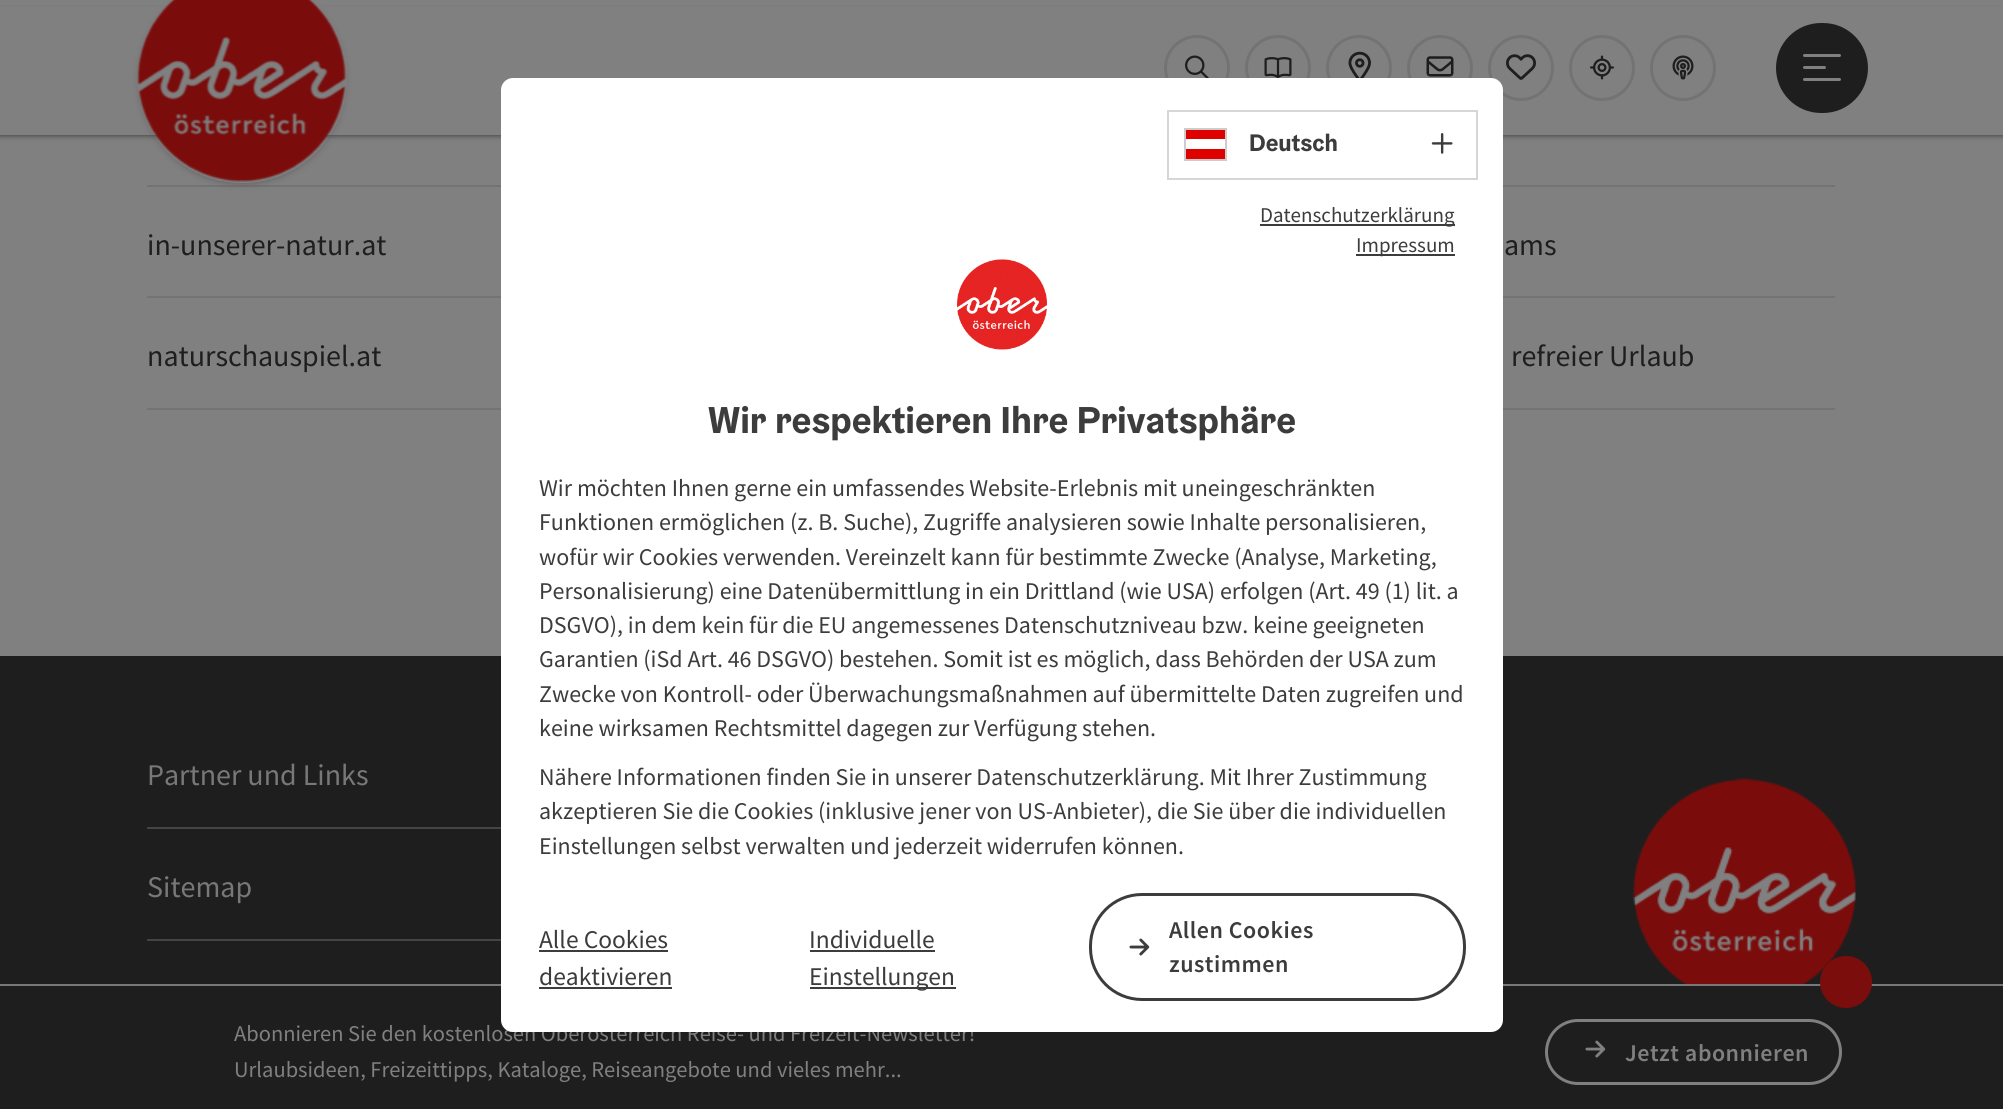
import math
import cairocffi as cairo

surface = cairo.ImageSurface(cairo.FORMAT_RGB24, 2003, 1109)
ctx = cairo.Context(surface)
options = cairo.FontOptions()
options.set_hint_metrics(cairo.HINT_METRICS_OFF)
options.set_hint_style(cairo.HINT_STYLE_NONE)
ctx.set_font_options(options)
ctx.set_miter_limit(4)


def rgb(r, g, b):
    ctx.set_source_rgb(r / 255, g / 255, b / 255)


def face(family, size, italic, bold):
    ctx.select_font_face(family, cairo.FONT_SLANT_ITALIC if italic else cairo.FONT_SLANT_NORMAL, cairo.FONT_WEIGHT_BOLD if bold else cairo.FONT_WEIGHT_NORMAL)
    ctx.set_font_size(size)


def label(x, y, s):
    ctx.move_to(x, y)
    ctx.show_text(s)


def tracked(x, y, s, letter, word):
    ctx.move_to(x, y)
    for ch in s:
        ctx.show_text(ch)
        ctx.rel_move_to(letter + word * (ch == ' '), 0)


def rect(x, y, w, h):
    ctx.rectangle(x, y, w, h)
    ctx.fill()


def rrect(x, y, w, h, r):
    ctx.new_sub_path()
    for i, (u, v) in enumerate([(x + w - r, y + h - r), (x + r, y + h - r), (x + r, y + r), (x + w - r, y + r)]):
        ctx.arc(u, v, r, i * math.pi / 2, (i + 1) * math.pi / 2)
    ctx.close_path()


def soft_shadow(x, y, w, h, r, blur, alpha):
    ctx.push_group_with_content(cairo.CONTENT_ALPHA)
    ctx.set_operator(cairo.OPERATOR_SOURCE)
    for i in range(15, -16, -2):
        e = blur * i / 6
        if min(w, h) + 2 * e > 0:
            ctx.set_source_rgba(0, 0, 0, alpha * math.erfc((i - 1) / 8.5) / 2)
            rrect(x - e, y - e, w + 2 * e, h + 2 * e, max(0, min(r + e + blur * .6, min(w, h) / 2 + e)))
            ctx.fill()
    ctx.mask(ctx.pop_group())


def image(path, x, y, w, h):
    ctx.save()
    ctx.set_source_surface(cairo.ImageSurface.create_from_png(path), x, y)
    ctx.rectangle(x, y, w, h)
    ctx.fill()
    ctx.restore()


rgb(128, 128, 128)
ctx.paint()
rgb(51, 51, 51)
soft_shadow(-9, 12, 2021, 123, 0, 3, 1)
rgb(128, 128, 128)
rect(0, 7, 2003, 128)
ctx.arc(1197, 68, 31.5, 0, 2 * math.pi)
rgb(115, 115, 115)
ctx.set_line_width(3)
ctx.stroke()
ctx.arc(1278, 68, 31.5, 0, 2 * math.pi)
ctx.stroke()
ctx.arc(1359, 68, 31.5, 0, 2 * math.pi)
ctx.stroke()
ctx.arc(1440, 68, 31.5, 0, 2 * math.pi)
ctx.stroke()
ctx.arc(1521, 68, 31.5, 0, 2 * math.pi)
ctx.stroke()
rgb(30, 30, 30)
rect(0, 656, 2003, 328)
rect(0, 986, 2003, 123)
rgb(120, 120, 120)
rect(0, 984, 2003, 2)
face('Source Sans Pro', 22.5, 0, 0)
rgb(128, 128, 128)
label(234, 1041, 'Abonnieren Sie den kostenlosen Oberösterreich Reise- und Freizeit-Newsletter!')
rgb(255, 255, 255)
rrect(501, 78, 1002, 954, 12)
ctx.fill()
ctx.rectangle(1168, 111, 309, 68)
rgb(214, 214, 214)
ctx.set_line_width(2)
ctx.stroke()
rgb(223, 0, 0)
ctx.set_fill_rule(cairo.FILL_RULE_EVEN_ODD)
ctx.new_path()
ctx.move_to(1225, 159)
ctx.line_to(1185, 159)
ctx.line_to(1185, 149)
ctx.line_to(1225, 149)
ctx.close_path()
ctx.move_to(1225, 139)
ctx.line_to(1185, 139)
ctx.line_to(1185, 129)
ctx.line_to(1225, 129)
ctx.close_path()
ctx.fill()
ctx.rectangle(1185, 129, 41, 31)
rgb(204, 204, 204)
ctx.stroke()
face('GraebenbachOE', 24, 0, 1)
rgb(60, 60, 60)
label(1249, 151, 'Deutsch')
image('image0.png', 1431, 133, 22, 21)
rect(1260, 224, 195, 2)
face('Source Sans Pro', 21, 0, 0)
label(1260, 222, 'Datenschutzerklärung')
rect(1356, 254, 99, 2)
label(1356, 252, 'Impressum')
image('image1.png', 957, 259, 90, 91)
face('GraebenbachOE', 37.5, 0, 1)
label(708, 433, 'Wir respektieren Ihre Privatsphäre')
face('Source Sans Pro', 24, 0, 0)
label(539, 496, 'Wir möchten Ihnen gerne ein umfassendes Website-Erlebnis mit uneingeschränkten')
label(539, 530, 'Funktionen ermöglichen (z. B. Suche), Zugriffe analysieren sowie Inhalte personalisieren,')
label(539, 565, 'wofür wir Cookies verwenden. Vereinzelt kann für bestimmte Zwecke (Analyse, Marketing,')
label(539, 599, 'Personalisierung) eine Datenübermittlung in ein Drittland (wie USA) erfolgen (Art. 49 (1) lit. a')
label(539, 633, 'DSGVO), in dem kein für die EU angemessenes Datenschutzniveau bzw. keine geeigneten')
label(539, 667, 'Garantien (iSd Art. 46 DSGVO) bestehen. Somit ist es möglich, dass Behörden der USA zum')
label(539, 702, 'Zwecke von Kontroll- oder Überwachungsmaßnahmen auf übermittelte Daten zugreifen und')
label(539, 736, 'keine wirksamen Rechtsmittel dagegen zur Verfügung stehen.')
label(539, 785, 'Nähere Informationen finden Sie in unserer Datenschutzerklärung. Mit Ihrer Zustimmung')
label(539, 819, 'akzeptieren Sie die Cookies (inklusive jener von US-Anbieter), die Sie über die individuellen')
label(539, 854, 'Einstellungen selbst verwalten und jederzeit widerrufen können.')
face('Source Sans Pro', 25.5, 0, 0)
label(539, 948, 'Alle Cookies')
rect(539, 950, 129, 2)
label(539, 985, 'deaktivieren')
rect(539, 987, 133, 2)
label(809, 948, 'Individuelle')
rect(810, 950, 125, 2)
rect(810, 987, 146, 2)
label(809, 985, 'Einstellungen')
rrect(1090.5, 894.5, 374, 105, 51.5)
ctx.set_line_width(3)
ctx.stroke()
face('Source Sans Pro SemiBold', 24, 0, 0)
tracked(1169, 938, 'Allen Cookies', 0.5, 0)
image('image2.png', 1129, 938, 21, 18)
tracked(1169, 972, 'zustimmen', 0.5, 0)
rgb(115, 115, 115)
rect(147, 185, 354, 2)
ctx.save()
ctx.new_path()
ctx.move_to(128, 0)
ctx.line_to(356, 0)
ctx.line_to(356, 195)
ctx.line_to(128, 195)
ctx.close_path()
ctx.move_to(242, -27)
ctx.curve_to(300, -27, 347, 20, 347, 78)
ctx.curve_to(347, 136, 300, 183, 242, 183)
ctx.curve_to(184, 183, 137, 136, 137, 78)
ctx.curve_to(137, 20, 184, -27, 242, -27)
ctx.close_path()
ctx.clip()
rgb(51, 51, 51)
soft_shadow(143, -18, 198, 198, 99, 4.5, 1)
ctx.restore()
image('image3.png', 137, 0, 210, 182)
image('image4.png', 1185, 55, 24, 23)
image('image5.png', 1264, 57, 28, 21)
image('image6.png', 1348, 51, 23, 27)
image('image7.png', 1426, 56, 28, 21)
image('image8.png', 1506, 54, 30, 26)
ctx.arc(1602, 68, 31.5, 0, 2 * math.pi)
ctx.stroke()
image('image9.png', 1590, 55, 24, 25)
ctx.arc(1683, 68, 31.5, 0, 2 * math.pi)
ctx.stroke()
image('image10.png', 1672, 55, 22, 25)
rgb(30, 30, 30)
rrect(1776, 23, 92, 90, 45)
ctx.fill()
rgb(128, 128, 128)
rrect(1803, 54, 38, 3, 1.5)
ctx.fill()
rrect(1803, 66, 23, 3, 1.5)
ctx.fill()
rrect(1803, 78, 38, 3, 1.5)
ctx.fill()
rgb(115, 115, 115)
rect(147, 296, 354, 2)
face('Source Sans Pro', 30, 0, 0)
rgb(30, 30, 30)
label(147, 255, 'in-unserer-natur.at')
rgb(115, 115, 115)
rect(147, 408, 354, 2)
rgb(30, 30, 30)
label(147, 366, 'naturschauspiel.at')
rgb(115, 115, 115)
rect(1503, 185, 332, 2)
rect(1503, 296, 332, 2)
rgb(30, 30, 30)
label(1504, 255, 'ams')
rgb(115, 115, 115)
rect(1503, 408, 332, 2)
rgb(30, 30, 30)
label(1511, 366, 'refreier Urlaub')
rgb(68, 68, 68)
rect(147, 827, 354, 2)
rgb(120, 120, 120)
label(147, 785, 'Partner und Links')
rgb(68, 68, 68)
rect(147, 939, 354, 2)
rgb(120, 120, 120)
label(147, 897, 'Sitemap')
image('image11.png', 1633, 778, 223, 206)
rgb(123, 13, 13)
ctx.arc(1846, 982, 26, 0, 2 * math.pi)
ctx.fill()
face('Source Sans Pro', 22.5, 0, 0)
rgb(128, 128, 128)
label(234, 1077, 'Urlaubsideen, Freizeittipps, Kataloge, Reiseangebote und vieles mehr...')
rrect(1546.5, 1020.5, 294, 63, 31.5)
ctx.stroke()
image('image12.png', 1585, 1040, 21, 18)
face('Source Sans Pro SemiBold', 24, 0, 0)
tracked(1625, 1061, 'Jetzt abonnieren', 0.5, 0)
surface.write_to_png('render.png')
